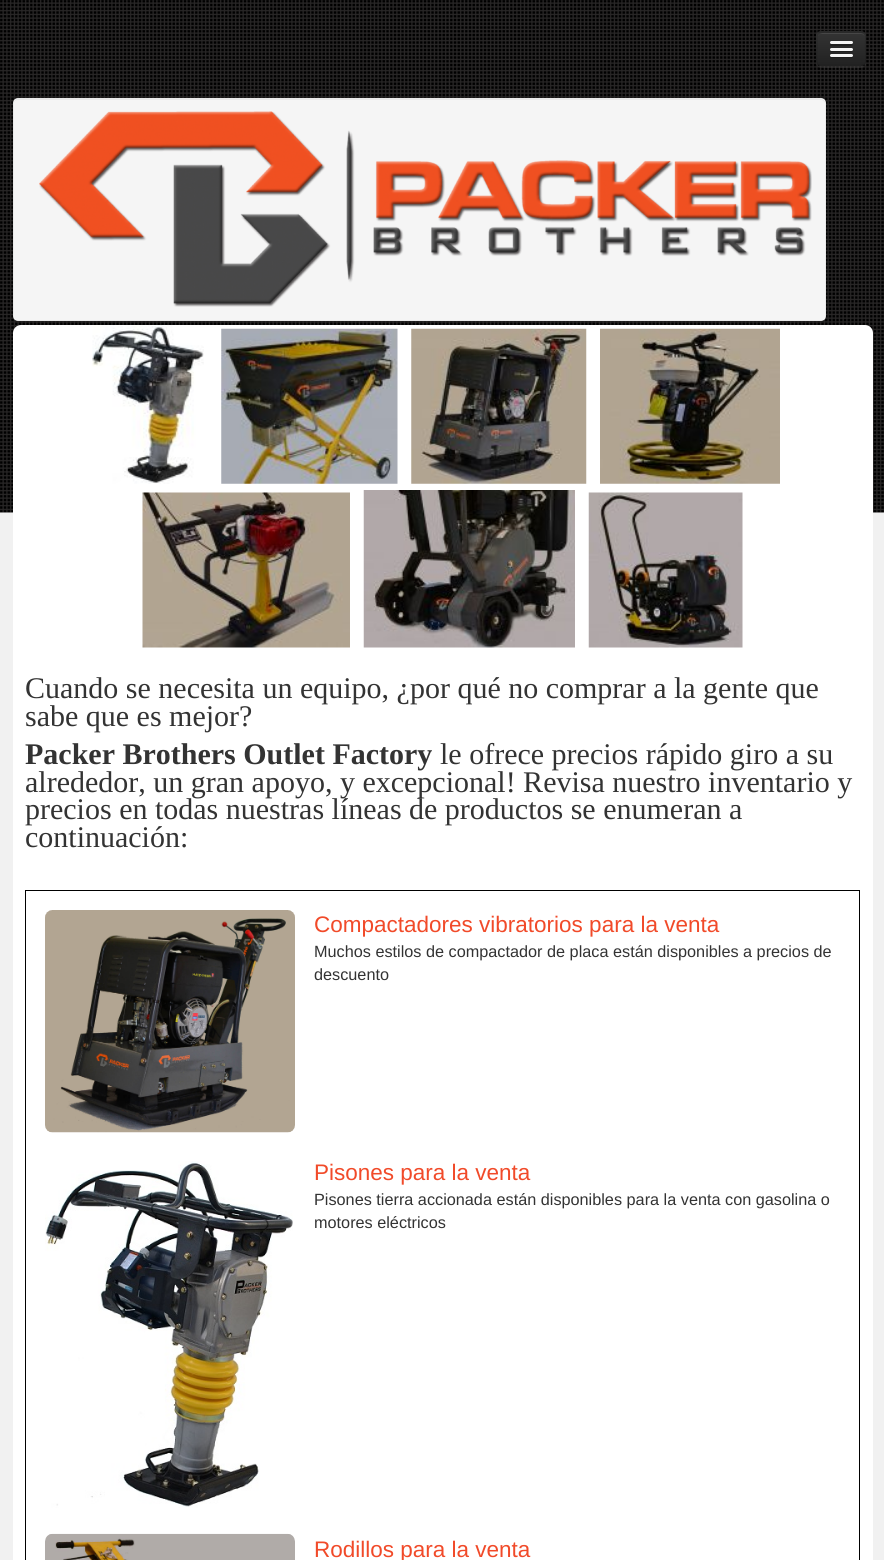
import math
import cairocffi as cairo

surface = cairo.ImageSurface(cairo.FORMAT_RGB24, 884, 1560)
ctx = cairo.Context(surface)
options = cairo.FontOptions()
options.set_hint_metrics(cairo.HINT_METRICS_OFF)
options.set_hint_style(cairo.HINT_STYLE_NONE)
ctx.set_font_options(options)
ctx.set_miter_limit(4)


def rgb(r, g, b):
    ctx.set_source_rgb(r / 255, g / 255, b / 255)


def face(family, size, italic, bold):
    ctx.select_font_face(family, cairo.FONT_SLANT_ITALIC if italic else cairo.FONT_SLANT_NORMAL, cairo.FONT_WEIGHT_BOLD if bold else cairo.FONT_WEIGHT_NORMAL)
    ctx.set_font_size(size)


def label(x, y, s):
    ctx.move_to(x, y)
    ctx.show_text(s)


def rect(x, y, w, h):
    ctx.rectangle(x, y, w, h)
    ctx.fill()


def rrect(x, y, w, h, r):
    ctx.new_sub_path()
    for i, (u, v) in enumerate([(x + w - r, y + h - r), (x + r, y + h - r), (x + r, y + r), (x + w - r, y + r)]):
        ctx.arc(u, v, r, i * math.pi / 2, (i + 1) * math.pi / 2)
    ctx.close_path()


def image(path, x, y, w, h):
    ctx.save()
    ctx.set_source_surface(cairo.ImageSurface.create_from_png(path), x, y)
    ctx.rectangle(x, y, w, h)
    ctx.fill()
    ctx.restore()


rgb(241, 241, 241)
ctx.paint()
image('image0.png', 0, 0, 884, 513)
ctx.set_source_rgba(1, 1, 1, 0.07)
ctx.new_path()
ctx.move_to(816, 36)
ctx.line_to(816, 55)
ctx.curve_to(816, 67, 815, 68, 828, 68)
ctx.line_to(841, 68)
ctx.curve_to(845, 68, 861, 69, 864, 67)
ctx.curve_to(865, 66, 866, 65, 866, 63)
ctx.curve_to(865, 65, 863, 66, 861, 66)
ctx.line_to(821, 66)
ctx.curve_to(818, 66, 816, 64, 816, 61)
ctx.close_path()
ctx.fill()
rgb(44, 44, 44)
rrect(816, 31, 50, 35, 5)
ctx.fill()
ctx.save()
rrect(816, 31, 50, 35, 5)
ctx.clip()
gradient = cairo.LinearGradient(841, 33, 841, 65)
gradient.add_color_stop_rgba(0, 0.2, 0.2, 0.2, 1)
gradient.add_color_stop_rgba(1, 0.133, 0.133, 0.133, 1)
ctx.set_source(gradient)
rect(816, 33, 50, 32)
ctx.restore()
rgb(71, 71, 71)
ctx.new_path()
ctx.move_to(821, 34)
ctx.line_to(861, 34)
ctx.curve_to(863, 34, 865, 35, 865, 38)
ctx.curve_to(865, 32, 859, 33, 854, 33)
ctx.line_to(828, 33)
ctx.curve_to(824, 33, 818, 32, 818, 38)
ctx.curve_to(818, 35, 819, 34, 821, 34)
ctx.close_path()
ctx.fill()
ctx.new_path()
ctx.move_to(864.5, 64.5)
ctx.curve_to(863.5, 65, 862.5, 65.5, 861, 65.5)
ctx.line_to(821, 65.5)
ctx.curve_to(820, 65.5, 819, 65, 818, 64.5)
ctx.set_source_rgba(0, 0, 0, 0.25)
ctx.set_line_width(1.2)
ctx.stroke()
ctx.new_path()
ctx.move_to(818, 64.5)
ctx.curve_to(815.5, 62, 817, 52, 817, 49)
ctx.line_to(817, 40.5)
ctx.curve_to(817, 37.5, 816.5, 33, 820.5, 32)
ctx.line_to(862, 32)
ctx.curve_to(866, 33, 865.5, 37.5, 865.5, 40.5)
ctx.line_to(865.5, 49)
ctx.curve_to(865.5, 52, 867, 62, 864.5, 64.5)
ctx.set_source_rgba(0, 0, 0, 0.1)
ctx.stroke()
rgb(33, 33, 33)
ctx.new_path()
ctx.move_to(830.5, 43.5)
ctx.line_to(830, 45)
ctx.curve_to(830.5, 47, 834, 46, 835, 46)
ctx.line_to(838, 46)
ctx.curve_to(840, 46, 851.5, 46.5, 852.5, 45.5)
ctx.curve_to(853, 45, 853, 44, 852.5, 43)
ctx.line_to(851.5, 43.5)
ctx.curve_to(849.5, 44, 831, 44, 830.5, 43.5)
ctx.close_path()
ctx.fill()
rgb(245, 245, 245)
rrect(830, 41, 23, 3, 1.5)
ctx.fill()
rgb(31, 31, 31)
ctx.new_path()
ctx.move_to(830.5, 49.5)
ctx.line_to(830, 51)
ctx.curve_to(830.5, 53, 834, 52, 835, 52)
ctx.line_to(848, 52)
ctx.curve_to(849.5, 52, 853, 53, 853, 50.5)
ctx.line_to(852.5, 49.5)
ctx.line_to(851.5, 50)
ctx.curve_to(849.5, 50.5, 831, 50.5, 830.5, 49.5)
ctx.close_path()
ctx.fill()
rgb(245, 245, 245)
rrect(830, 48, 23, 3, 1.5)
ctx.fill()
rgb(29, 29, 29)
ctx.new_path()
ctx.move_to(830, 55.5)
ctx.curve_to(828.5, 58.5, 834.5, 58, 835, 58)
ctx.line_to(848, 58)
ctx.curve_to(849, 58, 852.5, 59, 853, 57)
ctx.curve_to(853, 56.5, 853, 55.5, 852.5, 55.5)
ctx.line_to(851.5, 56)
ctx.line_to(831, 56)
ctx.close_path()
ctx.fill()
rgb(245, 245, 245)
rrect(830, 54, 23, 3, 1.5)
ctx.fill()
rrect(13, 98, 813, 223, 5)
ctx.fill()
rgb(233, 233, 233)
ctx.new_path()
ctx.move_to(18, 100)
ctx.line_to(821, 100)
ctx.curve_to(823, 100, 825, 102, 825, 104)
ctx.curve_to(825, 101, 824, 99, 821, 99)
ctx.line_to(18, 99)
ctx.curve_to(15, 99, 14, 101, 14, 104)
ctx.curve_to(14, 102, 15, 100, 18, 100)
ctx.close_path()
ctx.fill()
ctx.rectangle(13.5, 98.5, 812, 222)
ctx.set_source_rgba(0, 0, 0, 0.05)
ctx.set_line_width(1)
ctx.stroke()
image('image1.png', 39, 111, 773, 196)
rgb(255, 255, 255)
rrect(13, 325, 860, 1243, 8)
ctx.fill()
image('image2.png', 92, 325, 112, 159)
image('image3.png', 221, 328, 177, 156)
image('image4.png', 411, 328, 176, 156)
image('image5.png', 600, 328, 180, 156)
image('image6.png', 142, 492, 208, 156)
image('image7.png', 363, 490, 212, 158)
image('image8.png', 588, 492, 155, 156)
face('Liberation Serif', 30, 0, 0)
rgb(51, 51, 51)
label(25, 698, 'Cuando se necesita un equipo, ¿por qué no comprar a la gente que')
label(25, 726, 'sabe que es mejor?')
face('Liberation Serif', 30, 0, 1)
label(25, 764, 'Packer Brothers Outlet Factory')
face('Liberation Serif', 30, 0, 0)
label(440, 764, 'le ofrece precios rápido giro a su')
label(25, 792, 'alrededor, un gran apoyo, y excepcional! Revisa nuestro inventario y')
label(25, 819, 'precios en todas nuestras líneas de productos se enumeran a')
label(25, 847, 'continuación:')
rgb(0, 0, 0)
rect(25, 890, 835, 1)
rect(859, 891, 1, 669)
rect(25, 891, 1, 669)
image('image9.png', 45, 910, 250, 223)
face('Liberation Sans', 22.5, 0, 0)
rgb(241, 74, 41)
label(314, 932, 'Compactadores vibratorios para la venta')
face('Liberation Sans', 16.25, 0, 0)
rgb(51, 51, 51)
label(314, 957, 'Muchos estilos de compactador de placa están disponibles a precios de')
label(314, 980, 'descuento')
image('image10.png', 45, 1161, 248, 347)
face('Liberation Sans', 22.5, 0, 0)
rgb(241, 74, 41)
label(314, 1180, 'Pisones para la venta')
face('Liberation Sans', 16.25, 0, 0)
rgb(51, 51, 51)
label(314, 1205, 'Pisones tierra accionada están disponibles para la venta con gasolina o')
label(314, 1228, 'motores eléctricos')
image('image11.png', 45, 1533, 250, 27)
face('Liberation Sans', 22.5, 0, 0)
rgb(241, 74, 41)
label(314, 1557, 'Rodillos para la venta')
surface.write_to_png('render.png')
